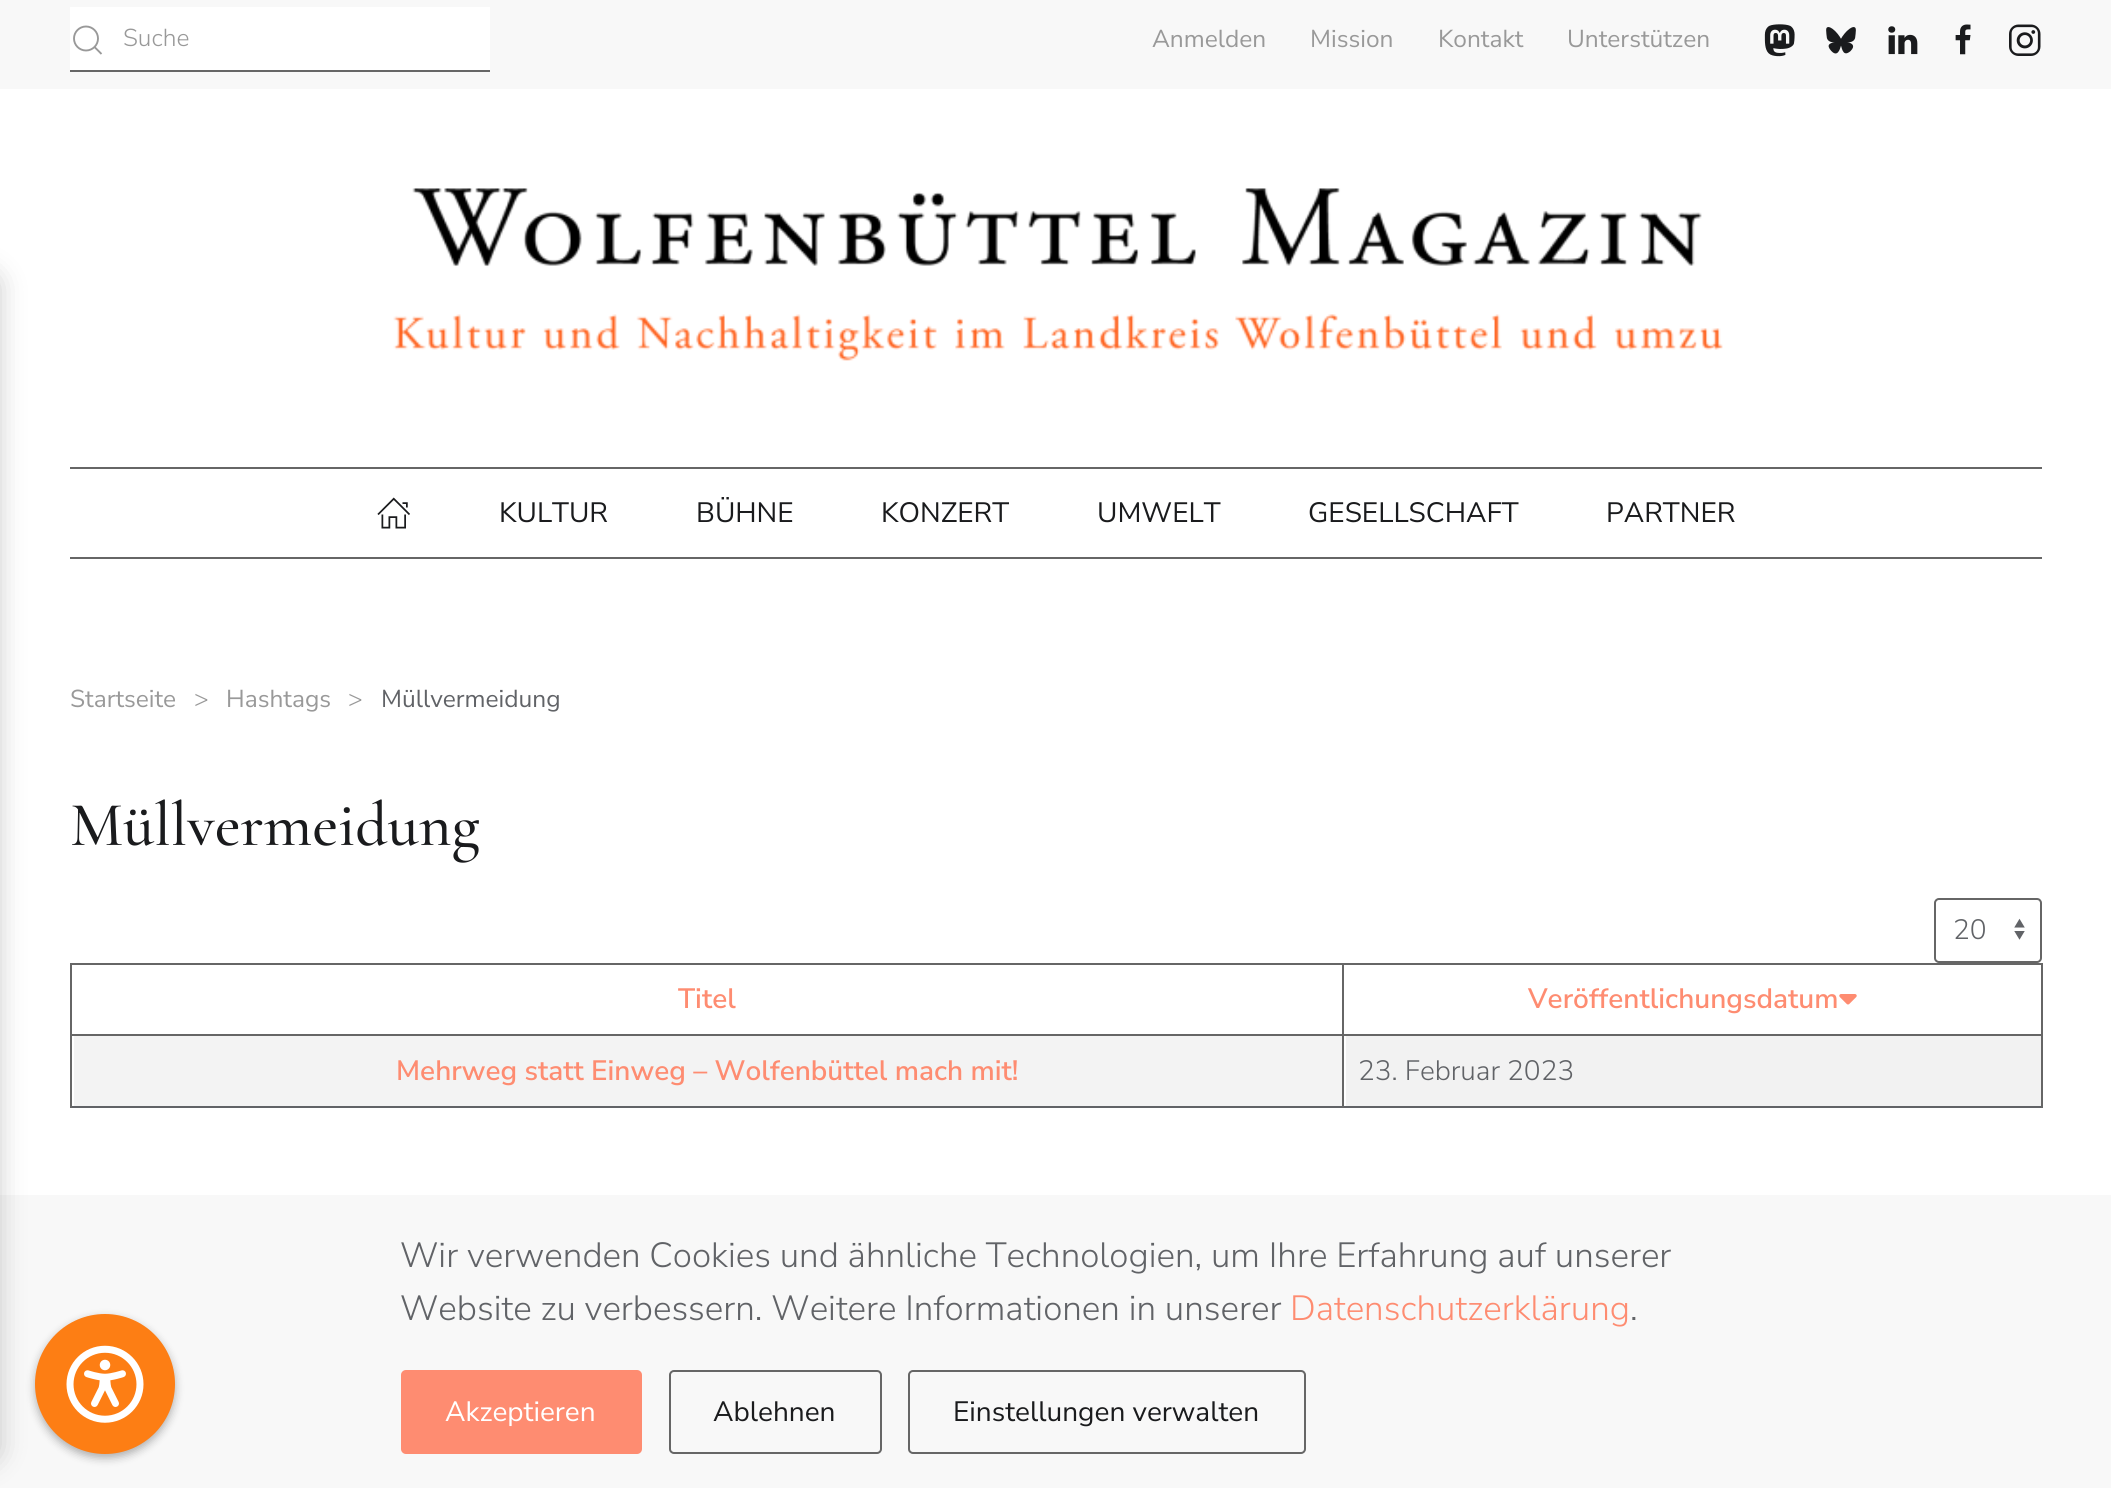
import math
import cairocffi as cairo

surface = cairo.ImageSurface(cairo.FORMAT_RGB24, 2111, 1488)
ctx = cairo.Context(surface)
options = cairo.FontOptions()
options.set_hint_metrics(cairo.HINT_METRICS_OFF)
options.set_hint_style(cairo.HINT_STYLE_NONE)
ctx.set_font_options(options)
ctx.set_miter_limit(4)


def rgb(r, g, b):
    ctx.set_source_rgb(r / 255, g / 255, b / 255)


def face(family, size, italic, bold):
    ctx.select_font_face(family, cairo.FONT_SLANT_ITALIC if italic else cairo.FONT_SLANT_NORMAL, cairo.FONT_WEIGHT_BOLD if bold else cairo.FONT_WEIGHT_NORMAL)
    ctx.set_font_size(size)


def label(x, y, s):
    ctx.move_to(x, y)
    ctx.show_text(s)


def rect(x, y, w, h):
    ctx.rectangle(x, y, w, h)
    ctx.fill()


def rrect(x, y, w, h, r):
    ctx.new_sub_path()
    for i, (u, v) in enumerate([(x + w - r, y + h - r), (x + r, y + h - r), (x + r, y + r), (x + w - r, y + r)]):
        ctx.arc(u, v, r, i * math.pi / 2, (i + 1) * math.pi / 2)
    ctx.close_path()


def soft_shadow(x, y, w, h, r, blur, alpha):
    ctx.push_group_with_content(cairo.CONTENT_ALPHA)
    ctx.set_operator(cairo.OPERATOR_SOURCE)
    for i in range(15, -16, -2):
        e = blur * i / 6
        if min(w, h) + 2 * e > 0:
            ctx.set_source_rgba(0, 0, 0, alpha * math.erfc((i - 1) / 8.5) / 2)
            rrect(x - e, y - e, w + 2 * e, h + 2 * e, max(0, min(r + e + blur * .6, min(w, h) / 2 + e)))
            ctx.fill()
    ctx.mask(ctx.pop_group())


def image(path, x, y, w, h):
    ctx.save()
    ctx.set_source_surface(cairo.ImageSurface.create_from_png(path), x, y)
    ctx.rectangle(x, y, w, h)
    ctx.fill()
    ctx.restore()


rgb(255, 255, 255)
ctx.paint()
rgb(248, 248, 248)
rect(0, 0, 2111, 89)
rgb(255, 255, 255)
rect(70, 7, 420, 63)
ctx.arc(86, 38.5, 12, 0, 2 * math.pi)
rgb(153, 153, 153)
ctx.set_line_width(1.9)
ctx.stroke()
ctx.new_path()
ctx.move_to(94.5, 47)
ctx.line_to(101.5, 54)
ctx.close_path()
ctx.stroke()
rgb(102, 102, 102)
rect(70, 70, 420, 2)
face('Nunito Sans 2 ExtraLight', 24.5, 0, 0)
rgb(153, 153, 153)
label(123, 46, 'Suche')
face('Nunito Sans ExtraLight', 24.5, 0, 0)
label(1152, 47, 'Anmelden')
label(1310, 47, 'Mission')
label(1438, 47, 'Kontakt')
label(1567, 47, 'Unterstützen')
image('image0.png', 1764, 24, 31, 33)
image('image1.png', 1826, 27, 30, 27)
image('image2.png', 1888, 26, 30, 29)
image('image3.png', 1955, 24, 16, 31)
image('image4.png', 2009, 24, 32, 32)
image('image5.png', 393, 188, 1330, 173)
rgb(102, 102, 102)
rect(70, 467, 1972, 2)
rect(70, 557, 1972, 2)
image('image6.png', 377, 497, 33, 32)
face('Nunito Sans ExtraLight', 28, 0, 0)
rgb(26, 27, 29)
label(499, 522, 'KULTUR')
label(696, 522, 'BÜHNE')
label(881, 522, 'KONZERT')
label(1097, 522, 'UMWELT')
label(1308, 522, 'GESELLSCHAFT')
label(1606, 522, 'PARTNER')
face('Nunito Sans ExtraLight', 24.5, 0, 0)
rgb(153, 153, 153)
label(70, 707, 'Startseite')
face('Nunito Sans 2 ExtraLight', 24.5, 0, 0)
label(194, 707, '>')
face('Nunito Sans ExtraLight', 24.5, 0, 0)
label(226, 707, 'Hashtags')
face('Nunito Sans 2 ExtraLight', 24.5, 0, 0)
label(348, 707, '>')
face('Nunito Sans ExtraLight', 24.5, 0, 0)
rgb(97, 99, 103)
label(381, 707, 'Müllvermeidung')
face('Cormorant Garamond Light', 63, 0, 0)
rgb(26, 27, 29)
label(70, 845, 'Müllvermeidung')
image('image7.png', 2014, 918, 11, 22)
rrect(1935, 899, 106, 63, 4)
rgb(102, 102, 102)
ctx.set_line_width(2)
ctx.stroke()
face('Nunito Sans 2 ExtraLight', 28, 0, 0)
rgb(97, 99, 103)
label(1953, 939, '20')
rgb(102, 102, 102)
rect(70, 963, 1972, 2)
face('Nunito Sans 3 ExtraLight', 28, 0, 0)
rgb(254, 140, 113)
label(678, 1008, 'Titel')
label(1528, 1008, 'Veröffentlichungsdatum')
image('image8.png', 1839, 994, 18, 11)
rgb(102, 102, 102)
rect(70, 1034, 1972, 2)
rgb(97, 99, 103)
rect(70, 1106, 1972, 2)
rgb(243, 243, 243)
rect(74, 1036, 1268, 70)
rgb(102, 102, 102)
rect(70, 963, 2, 145)
rgb(254, 140, 113)
label(396, 1080, 'Mehrweg statt Einweg – Wolfenbüttel mach mit!')
rgb(242, 242, 242)
rect(1346, 1036, 695, 70)
rgb(102, 102, 102)
rect(2041, 963, 2, 145)
rect(1342, 963, 2, 145)
face('Nunito Sans 2 ExtraLight', 28, 0, 0)
rgb(97, 99, 103)
label(1358, 1080, '23. Februar 2023')
rgb(248, 248, 248)
rect(0, 1195, 2111, 293)
rgb(0, 0, 0)
soft_shadow(35, 1318, 140, 140, 70, 4.5, 0.3)
rgb(253, 126, 20)
ctx.arc(105, 1384, 70, 0, 2 * math.pi)
ctx.fill()
rgb(0, 0, 0)
soft_shadow(-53, 271, 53, 1192, 14, 13, 0.2)
image('image9.png', 66, 1345, 78, 78)
face('Nunito Sans 2 ExtraLight', 35, 0, 0)
rgb(97, 99, 103)
label(400, 1267, 'Wir verwenden Cookies und ähnliche Technologien, um Ihre Erfahrung auf unserer')
label(400, 1320, 'Website zu verbessern. Weitere Informationen in unserer')
rgb(254, 140, 113)
label(1290, 1320, 'Datenschutzerklärung')
rgb(97, 99, 103)
label(1630, 1320, '.')
rgb(254, 140, 113)
rrect(401, 1370, 241, 84, 5)
ctx.fill()
face('Nunito Sans ExtraLight', 28, 0, 0)
rgb(255, 255, 255)
label(445, 1421, 'Akzeptieren')
rrect(670, 1371, 211, 82, 4)
rgb(102, 102, 102)
ctx.stroke()
rgb(26, 27, 29)
label(713, 1421, 'Ablehnen')
rrect(909, 1371, 396, 82, 4)
rgb(102, 102, 102)
ctx.stroke()
rgb(26, 27, 29)
label(953, 1421, 'Einstellungen verwalten')
surface.write_to_png('render.png')
